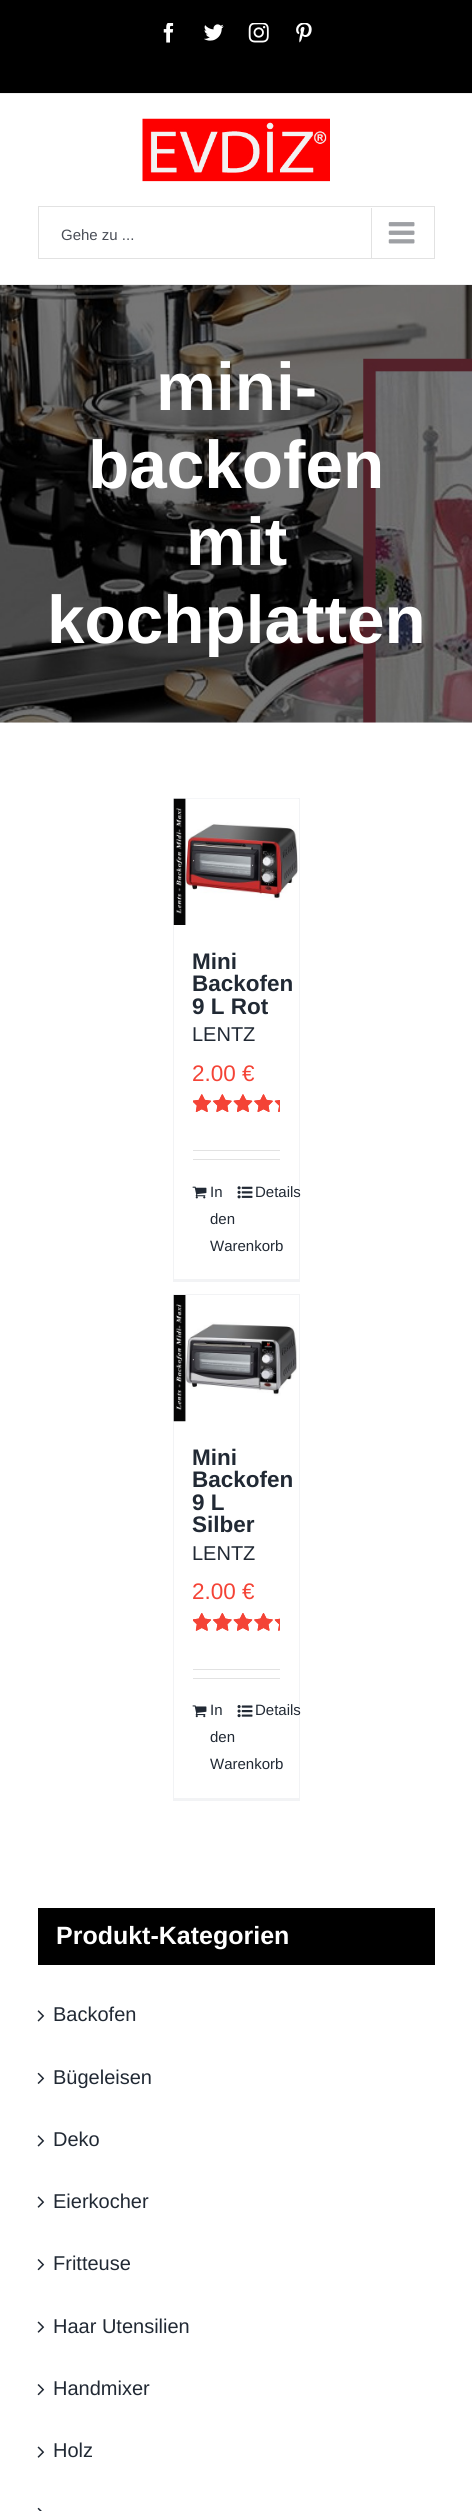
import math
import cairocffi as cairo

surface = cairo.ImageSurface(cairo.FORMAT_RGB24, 472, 2511)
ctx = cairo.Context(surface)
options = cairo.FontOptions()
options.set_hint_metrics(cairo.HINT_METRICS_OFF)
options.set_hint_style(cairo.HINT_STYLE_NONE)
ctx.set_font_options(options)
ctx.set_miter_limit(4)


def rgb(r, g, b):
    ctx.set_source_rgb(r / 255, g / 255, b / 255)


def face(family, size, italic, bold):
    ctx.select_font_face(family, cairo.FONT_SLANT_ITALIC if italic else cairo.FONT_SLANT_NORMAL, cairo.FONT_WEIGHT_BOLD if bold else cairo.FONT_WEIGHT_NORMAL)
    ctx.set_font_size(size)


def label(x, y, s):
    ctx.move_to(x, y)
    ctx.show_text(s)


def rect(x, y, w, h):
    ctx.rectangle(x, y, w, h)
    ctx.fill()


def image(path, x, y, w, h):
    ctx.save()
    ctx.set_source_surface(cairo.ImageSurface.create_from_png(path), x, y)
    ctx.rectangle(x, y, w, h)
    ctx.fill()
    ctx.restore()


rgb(255, 255, 255)
ctx.paint()
rgb(0, 0, 0)
rect(0, 0, 472, 93)
rgb(239, 239, 239)
rect(0, 93, 472, 1)
image('image0.png', 163, 23, 11, 20)
image('image1.png', 204, 24, 20, 17)
image('image2.png', 248, 23, 21, 20)
image('image3.png', 296, 23, 16, 20)
rect(0, 284, 472, 1)
image('image4.png', 142, 118, 188, 64)
ctx.rectangle(38.5, 206.5, 396, 52)
rgb(226, 226, 226)
ctx.set_line_width(1)
ctx.stroke()
face('Liberation Sans', 15, 0, 0)
rgb(74, 78, 87)
label(61, 240, 'Gehe zu ...')
rgb(226, 226, 226)
rect(371, 208, 1, 50)
image('image5.png', 388, 222, 27, 22)
rgb(242, 243, 245)
rect(0, 722, 472, 1)
image('image6.png', 0, 285, 472, 438)
face('Liberation Sans', 67.5, 0, 1)
rgb(255, 255, 255)
label(156, 410, 'mini-')
label(88, 488, 'backofen')
label(186, 565, 'mit')
label(47, 643, 'kochplatten')
rgb(242, 243, 245)
rect(173, 798, 127, 1)
rect(299, 798, 1, 483)
rect(173, 1279, 127, 3)
rect(173, 798, 1, 483)
image('image7.png', 173, 798, 125, 127)
face('Liberation Sans', 22.5, 0, 1)
rgb(33, 41, 52)
label(192, 969, 'Mini')
label(192, 991, 'Backofen')
label(192, 1014, '9 L Rot')
face('Liberation Sans', 20, 0, 0)
label(192, 1041, 'LENTZ')
face('Liberation Sans', 22.5, 0, 0)
rgb(244, 67, 54)
label(192, 1081, '2.00 €')
image('image8.png', 193, 1094, 87, 18)
image('image9.png', 193, 1094, 87, 18)
rgb(226, 226, 226)
rect(193, 1150, 87, 1)
rect(193, 1159, 87, 1)
image('image10.png', 192, 1186, 15, 13)
face('Liberation Sans', 15, 0, 0)
rgb(33, 41, 52)
label(210, 1197, 'In')
label(210, 1224, 'den')
label(210, 1251, 'Warenkorb')
image('image11.png', 237, 1186, 16, 13)
label(255, 1197, 'Details')
rgb(242, 243, 245)
rect(173, 1294, 127, 1)
rect(299, 1294, 1, 506)
rect(173, 1798, 127, 3)
rect(173, 1294, 1, 506)
image('image12.png', 173, 1295, 124, 127)
face('Liberation Sans', 22.5, 0, 1)
rgb(33, 41, 52)
label(192, 1465, 'Mini')
label(192, 1487, 'Backofen')
label(192, 1510, '9 L')
label(192, 1532, 'Silber')
face('Liberation Sans', 20, 0, 0)
label(192, 1560, 'LENTZ')
face('Liberation Sans', 22.5, 0, 0)
rgb(244, 67, 54)
label(192, 1599, '2.00 €')
image('image13.png', 193, 1613, 87, 18)
image('image14.png', 193, 1613, 87, 18)
rgb(226, 226, 226)
rect(193, 1669, 87, 1)
rect(193, 1678, 87, 1)
image('image15.png', 192, 1705, 15, 13)
face('Liberation Sans', 15, 0, 0)
rgb(33, 41, 52)
label(210, 1715, 'In')
label(210, 1742, 'den')
label(210, 1769, 'Warenkorb')
image('image16.png', 237, 1705, 16, 13)
label(255, 1715, 'Details')
rgb(0, 0, 0)
rect(38, 1908, 397, 57)
face('Liberation Sans', 25, 0, 1)
rgb(255, 255, 255)
label(56, 1944, 'Produkt-Kategorien')
image('image17.png', 37, 2010, 8, 12)
face('Liberation Sans', 20, 0, 0)
rgb(33, 41, 52)
label(53, 2021, 'Backofen')
image('image18.png', 37, 2072, 8, 12)
label(53, 2084, 'Bügeleisen')
image('image17.png', 37, 2135, 8, 12)
label(53, 2146, 'Deko')
image('image19.png', 37, 2196, 8, 12)
label(53, 2208, 'Eierkocher')
image('image20.png', 37, 2259, 8, 12)
label(53, 2270, 'Fritteuse')
image('image19.png', 37, 2321, 8, 12)
label(53, 2333, 'Haar Utensilien')
image('image20.png', 37, 2384, 8, 12)
label(53, 2395, 'Handmixer')
image('image19.png', 37, 2446, 8, 12)
label(53, 2457, 'Holz')
image('image21.png', 37, 2507, 5, 4)
surface.write_to_png('render.png')
